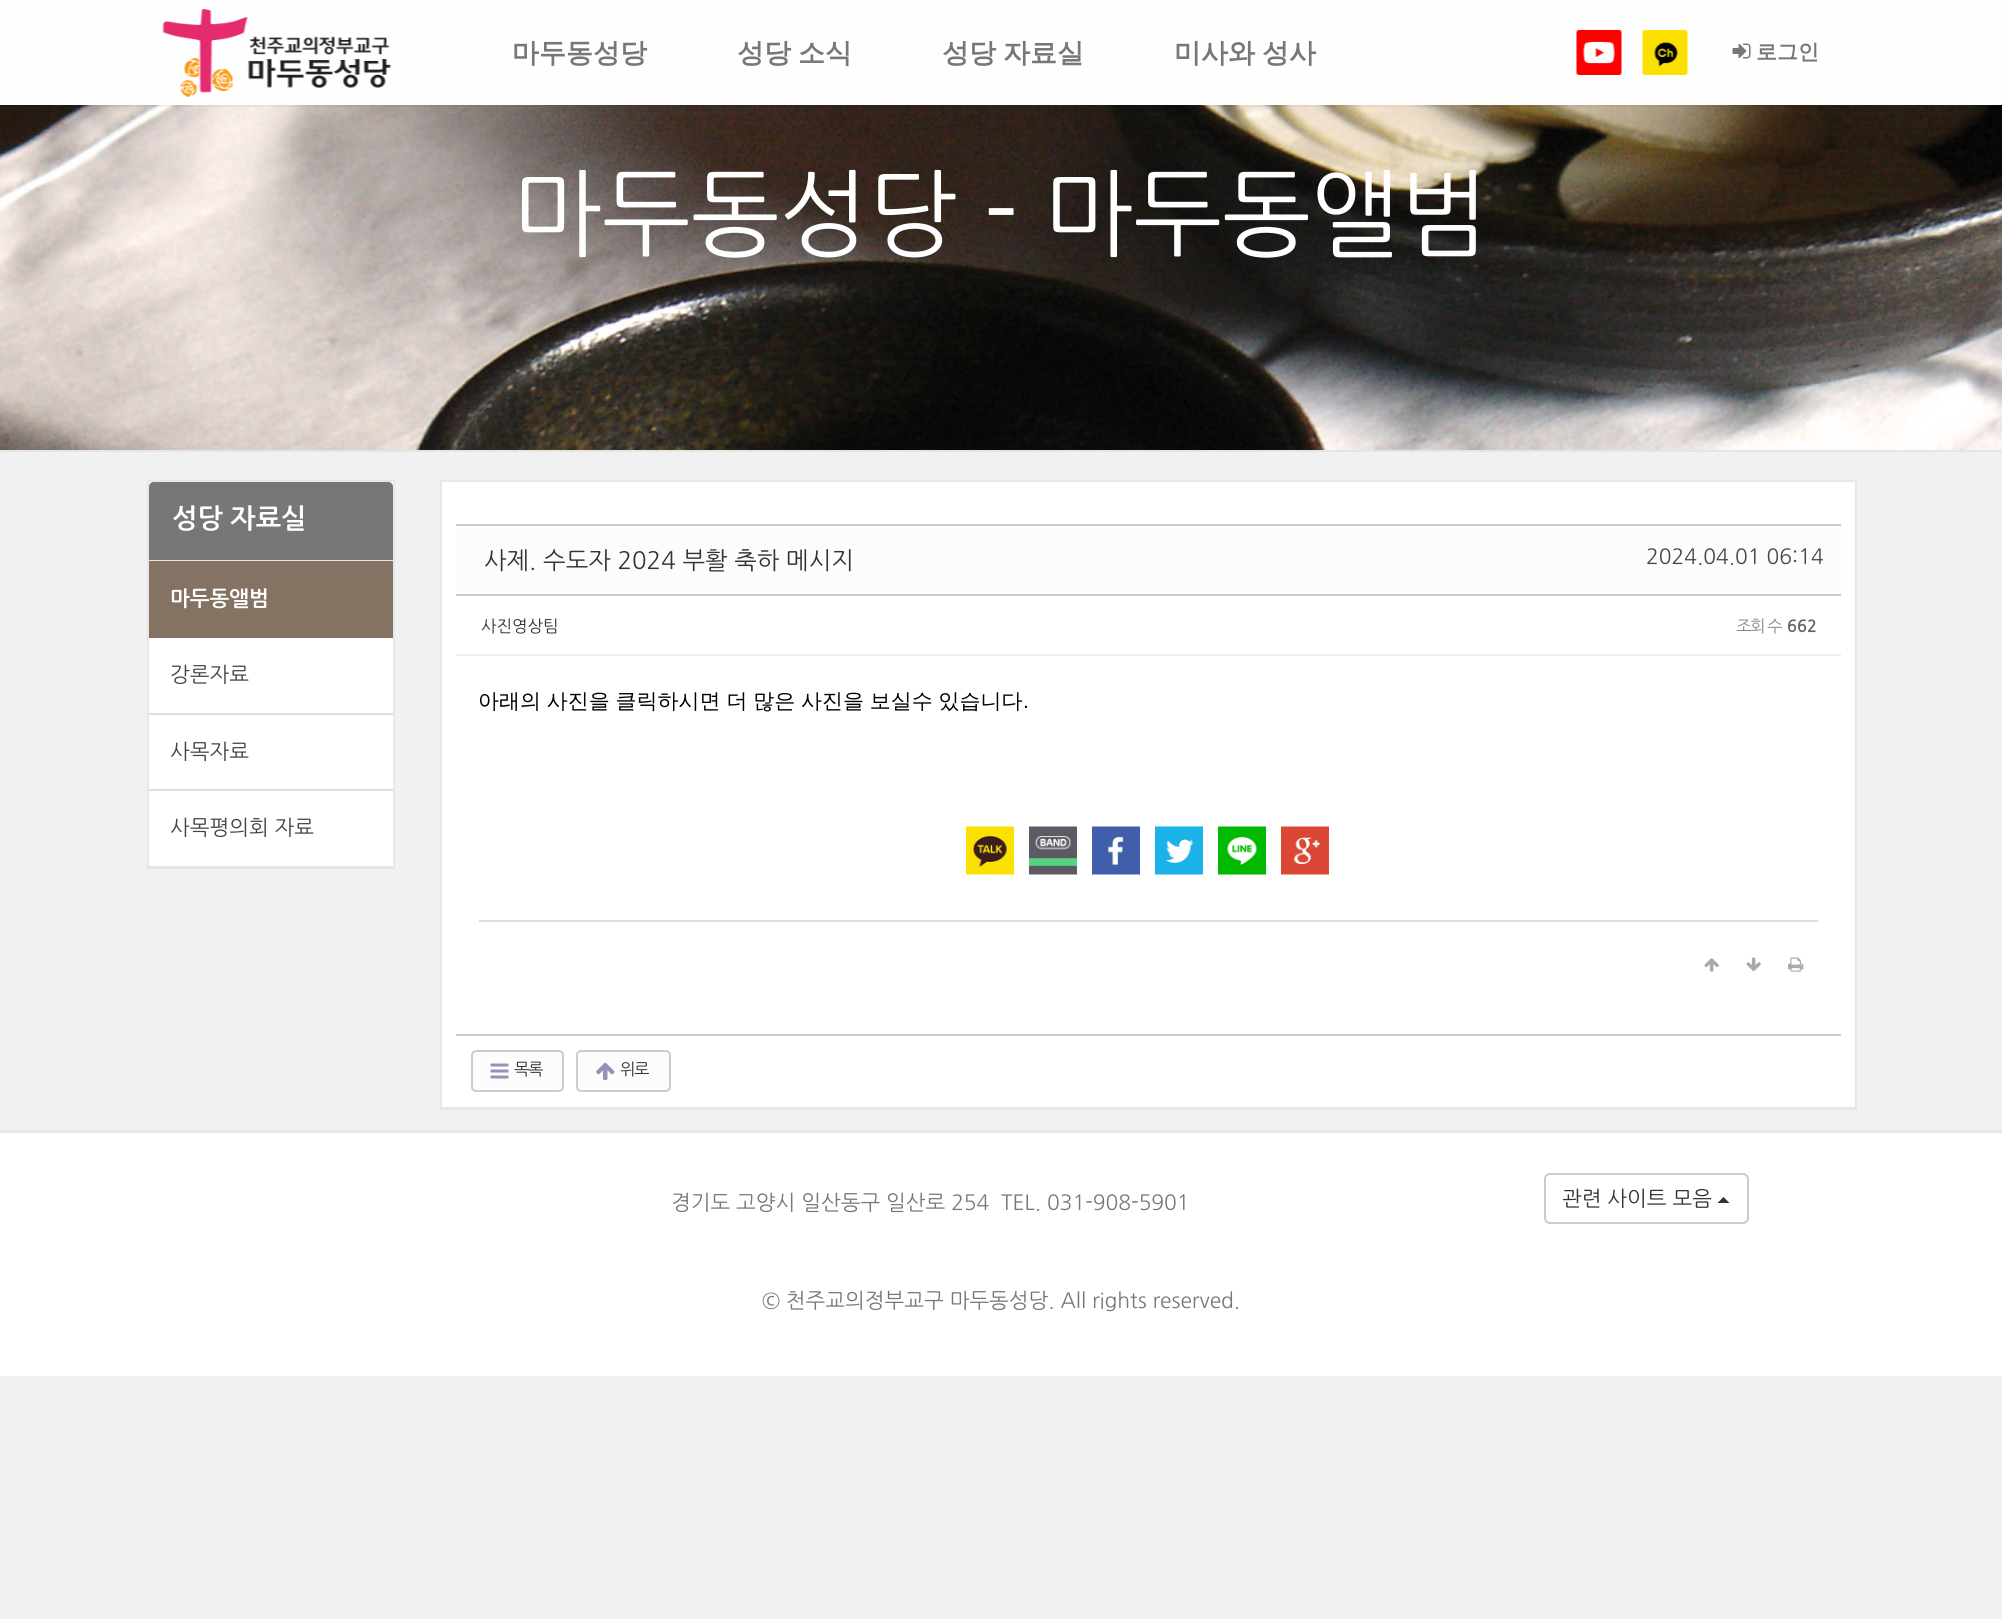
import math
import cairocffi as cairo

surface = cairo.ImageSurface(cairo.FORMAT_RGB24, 2002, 1619)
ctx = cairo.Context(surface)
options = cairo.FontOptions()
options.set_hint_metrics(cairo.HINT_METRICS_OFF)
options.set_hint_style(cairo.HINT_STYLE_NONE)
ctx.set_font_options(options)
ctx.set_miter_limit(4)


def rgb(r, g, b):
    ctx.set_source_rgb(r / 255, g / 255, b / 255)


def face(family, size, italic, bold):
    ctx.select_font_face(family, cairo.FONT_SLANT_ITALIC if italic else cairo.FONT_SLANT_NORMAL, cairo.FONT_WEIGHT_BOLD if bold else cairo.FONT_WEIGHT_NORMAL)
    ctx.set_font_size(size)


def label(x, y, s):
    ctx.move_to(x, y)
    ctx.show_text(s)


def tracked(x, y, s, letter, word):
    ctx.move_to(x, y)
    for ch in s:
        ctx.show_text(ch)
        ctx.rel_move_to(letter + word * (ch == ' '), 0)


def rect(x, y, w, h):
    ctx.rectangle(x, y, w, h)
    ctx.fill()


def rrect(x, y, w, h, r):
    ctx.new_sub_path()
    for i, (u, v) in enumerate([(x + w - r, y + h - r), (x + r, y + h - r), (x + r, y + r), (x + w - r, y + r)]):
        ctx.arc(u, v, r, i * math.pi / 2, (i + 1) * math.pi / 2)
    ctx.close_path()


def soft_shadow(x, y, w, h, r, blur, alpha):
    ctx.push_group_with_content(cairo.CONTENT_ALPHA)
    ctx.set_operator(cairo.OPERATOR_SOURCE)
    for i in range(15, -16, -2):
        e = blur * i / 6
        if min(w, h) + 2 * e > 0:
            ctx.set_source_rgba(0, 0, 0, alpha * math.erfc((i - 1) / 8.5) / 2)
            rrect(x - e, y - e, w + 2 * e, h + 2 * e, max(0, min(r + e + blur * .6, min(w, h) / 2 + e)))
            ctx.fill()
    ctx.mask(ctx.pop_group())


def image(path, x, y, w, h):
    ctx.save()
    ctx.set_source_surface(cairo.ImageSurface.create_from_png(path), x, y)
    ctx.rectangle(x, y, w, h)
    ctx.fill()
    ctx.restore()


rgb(241, 241, 241)
ctx.paint()
image('image4.png', 0, 105, 2002, 345)
ctx.set_source_rgba(0, 0, 0, 0.05)
ctx.new_path()
ctx.move_to(0, 105)
ctx.line_to(0, 107)
ctx.line_to(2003, 107)
ctx.line_to(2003, 2)
ctx.line_to(2002, 2)
ctx.line_to(2002, 105)
ctx.close_path()
ctx.fill()
rgb(254, 254, 254)
rect(0, 0, 2002, 105)
image('image0.png', 162, 9, 230, 88)
face('WenQuanYi Zen Hei', 27, 0, 1)
rgb(119, 119, 119)
label(512, 62, '마두동성당')
tracked(737, 62, '성당 소식', 0, -1)
tracked(942, 62, '성당 자료실', 0, -1)
tracked(1174, 62, '미사와 성사', 0, -1)
image('image1.png', 1576, 30, 46, 45)
image('image2.png', 1642, 30, 46, 45)
image('image3.png', 1732, 43, 19, 16)
face('WenQuanYi Zen Hei', 21, 0, 1)
label(1756, 59, '로그인')
rgb(229, 229, 229)
ctx.new_path()
ctx.move_to(0, 450)
ctx.line_to(0, 452)
ctx.line_to(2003, 452)
ctx.line_to(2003, 2)
ctx.line_to(2002, 2)
ctx.line_to(2002, 450)
ctx.close_path()
ctx.fill()
face('NanumGothic', 94.5, 0, 0)
rgb(255, 255, 255)
label(513, 248, '마두동성당 - 마두동앨범')
rgb(229, 229, 229)
ctx.new_path()
ctx.move_to(147, 867)
ctx.line_to(147, 869)
ctx.line_to(395, 869)
ctx.line_to(395, 482)
ctx.line_to(394, 482)
ctx.line_to(394, 867)
ctx.close_path()
ctx.fill()
rgb(255, 255, 255)
rect(149, 482, 244, 231)
ctx.rectangle(148, 481, 246, 385)
rgb(231, 231, 231)
ctx.stroke()
rgb(119, 119, 119)
ctx.new_path()
ctx.move_to(154, 482)
ctx.line_to(388, 482)
ctx.curve_to(391, 482, 393, 484, 393, 487)
ctx.line_to(393, 561)
ctx.line_to(149, 561)
ctx.line_to(149, 487)
ctx.curve_to(149, 484, 151, 482, 154, 482)
ctx.close_path()
ctx.fill()
rgb(231, 231, 231)
rect(149, 560, 244, 1)
face('NanumGothic', 27, 0, 1)
rgb(255, 255, 255)
label(172, 528, '성당 자료실')
rgb(132, 115, 99)
rect(149, 561, 244, 77)
face('NanumGothic', 21, 0, 1)
rgb(255, 255, 255)
label(170, 606, '마두동앨범')
face('NanumGothic', 21, 0, 0)
rgb(68, 68, 68)
label(170, 682, '강론자료')
rgb(255, 255, 255)
rect(149, 715, 244, 74)
rgb(221, 221, 221)
rect(149, 713, 244, 2)
rgb(68, 68, 68)
label(170, 759, '사목자료')
rgb(255, 255, 255)
rect(149, 791, 244, 75)
rgb(221, 221, 221)
rect(149, 789, 244, 2)
rgb(68, 68, 68)
label(170, 835, '사목평의회 자료')
rgb(229, 229, 229)
rect(440, 1109, 1417, 1)
rgb(255, 255, 255)
ctx.rectangle(441, 481, 1415, 627)
ctx.fill_preserve()
rgb(231, 231, 231)
ctx.stroke()
rgb(252, 252, 252)
rect(456, 526, 1385, 68)
rgb(204, 204, 204)
rect(456, 524, 1385, 2)
rect(456, 594, 1385, 2)
face('NanumGothic', 24, 0, 0)
rgb(51, 51, 51)
label(484, 569, '사제. 수도자 2024 부활 축하 메시지')
face('NanumGothic', 21, 0, 0)
rgb(68, 68, 68)
label(1646, 564, '2024.04.01 06:14')
rgb(238, 238, 238)
rect(456, 654, 1385, 2)
face('NanumGothic', 16.5, 0, 0)
rgb(51, 51, 51)
label(481, 632, '사진영상팀')
rgb(136, 136, 136)
tracked(1736, 632, '조회 수', -1.5, 0)
face('NanumGothic', 16.5, 0, 1)
rgb(102, 102, 102)
label(1787, 632, '662')
face('WenQuanYi Zen Hei Medium', 21, 0, 0)
rgb(0, 0, 0)
tracked(478, 708, '아래의 사진을 클릭하시면 더 많은 사진을 보실수 있습니다', 0, -0.5)
face('Liberation Sans', 21, 0, 0)
label(1023, 708, '.')
image('image5.png', 966, 826, 48, 49)
image('image6.png', 1029, 826, 48, 49)
image('image7.png', 1092, 826, 48, 49)
image('image8.png', 1155, 826, 48, 49)
image('image9.png', 1218, 826, 48, 49)
image('image10.png', 1281, 826, 48, 49)
rgb(221, 221, 221)
rect(479, 920, 1339, 2)
image('image11.png', 1704, 958, 15, 14)
image('image12.png', 1746, 957, 15, 15)
image('image13.png', 1788, 957, 16, 15)
rgb(204, 204, 204)
rect(456, 1034, 1385, 2)
rgb(252, 252, 252)
rrect(472, 1051, 91, 40, 4)
ctx.fill_preserve()
rgb(204, 204, 204)
ctx.stroke()
image('image14.png', 490, 1063, 19, 16)
face('NanumGothic', 16.5, 0, 0)
rgb(51, 51, 51)
tracked(514, 1075, '목록', -1.5, 0)
rgb(252, 252, 252)
rrect(577, 1051, 93, 40, 4)
ctx.fill_preserve()
rgb(204, 204, 204)
ctx.stroke()
image('image15.png', 596, 1062, 19, 18)
rgb(51, 51, 51)
tracked(620, 1075, '위로', -1.5, 0)
rgb(0, 0, 0)
soft_shadow(0, 1130, 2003, 244, 0, 1.5, 0.05)
rgb(255, 255, 255)
rect(0, 1133, 2002, 243)
rgb(230, 230, 230)
rect(0, 1131, 1, 2)
face('NanumGothic', 21, 0, 0)
rgb(119, 119, 119)
label(671, 1210, '경기도 고양시 일산동구 일산로 254  TEL. 031-908-5901')
rrect(1545, 1174, 203, 49, 5)
rgb(204, 204, 204)
ctx.stroke()
rgb(51, 51, 51)
label(1562, 1206, '관련 사이트 모음')
ctx.new_path()
ctx.move_to(1729.5, 1203)
ctx.line_to(1717.5, 1203)
ctx.line_to(1723.5, 1197)
ctx.close_path()
ctx.fill()
rgb(119, 119, 119)
label(762, 1308, '© 천주교의정부교구 마두동성당. All rights reserved.')
surface.write_to_png('render.png')
